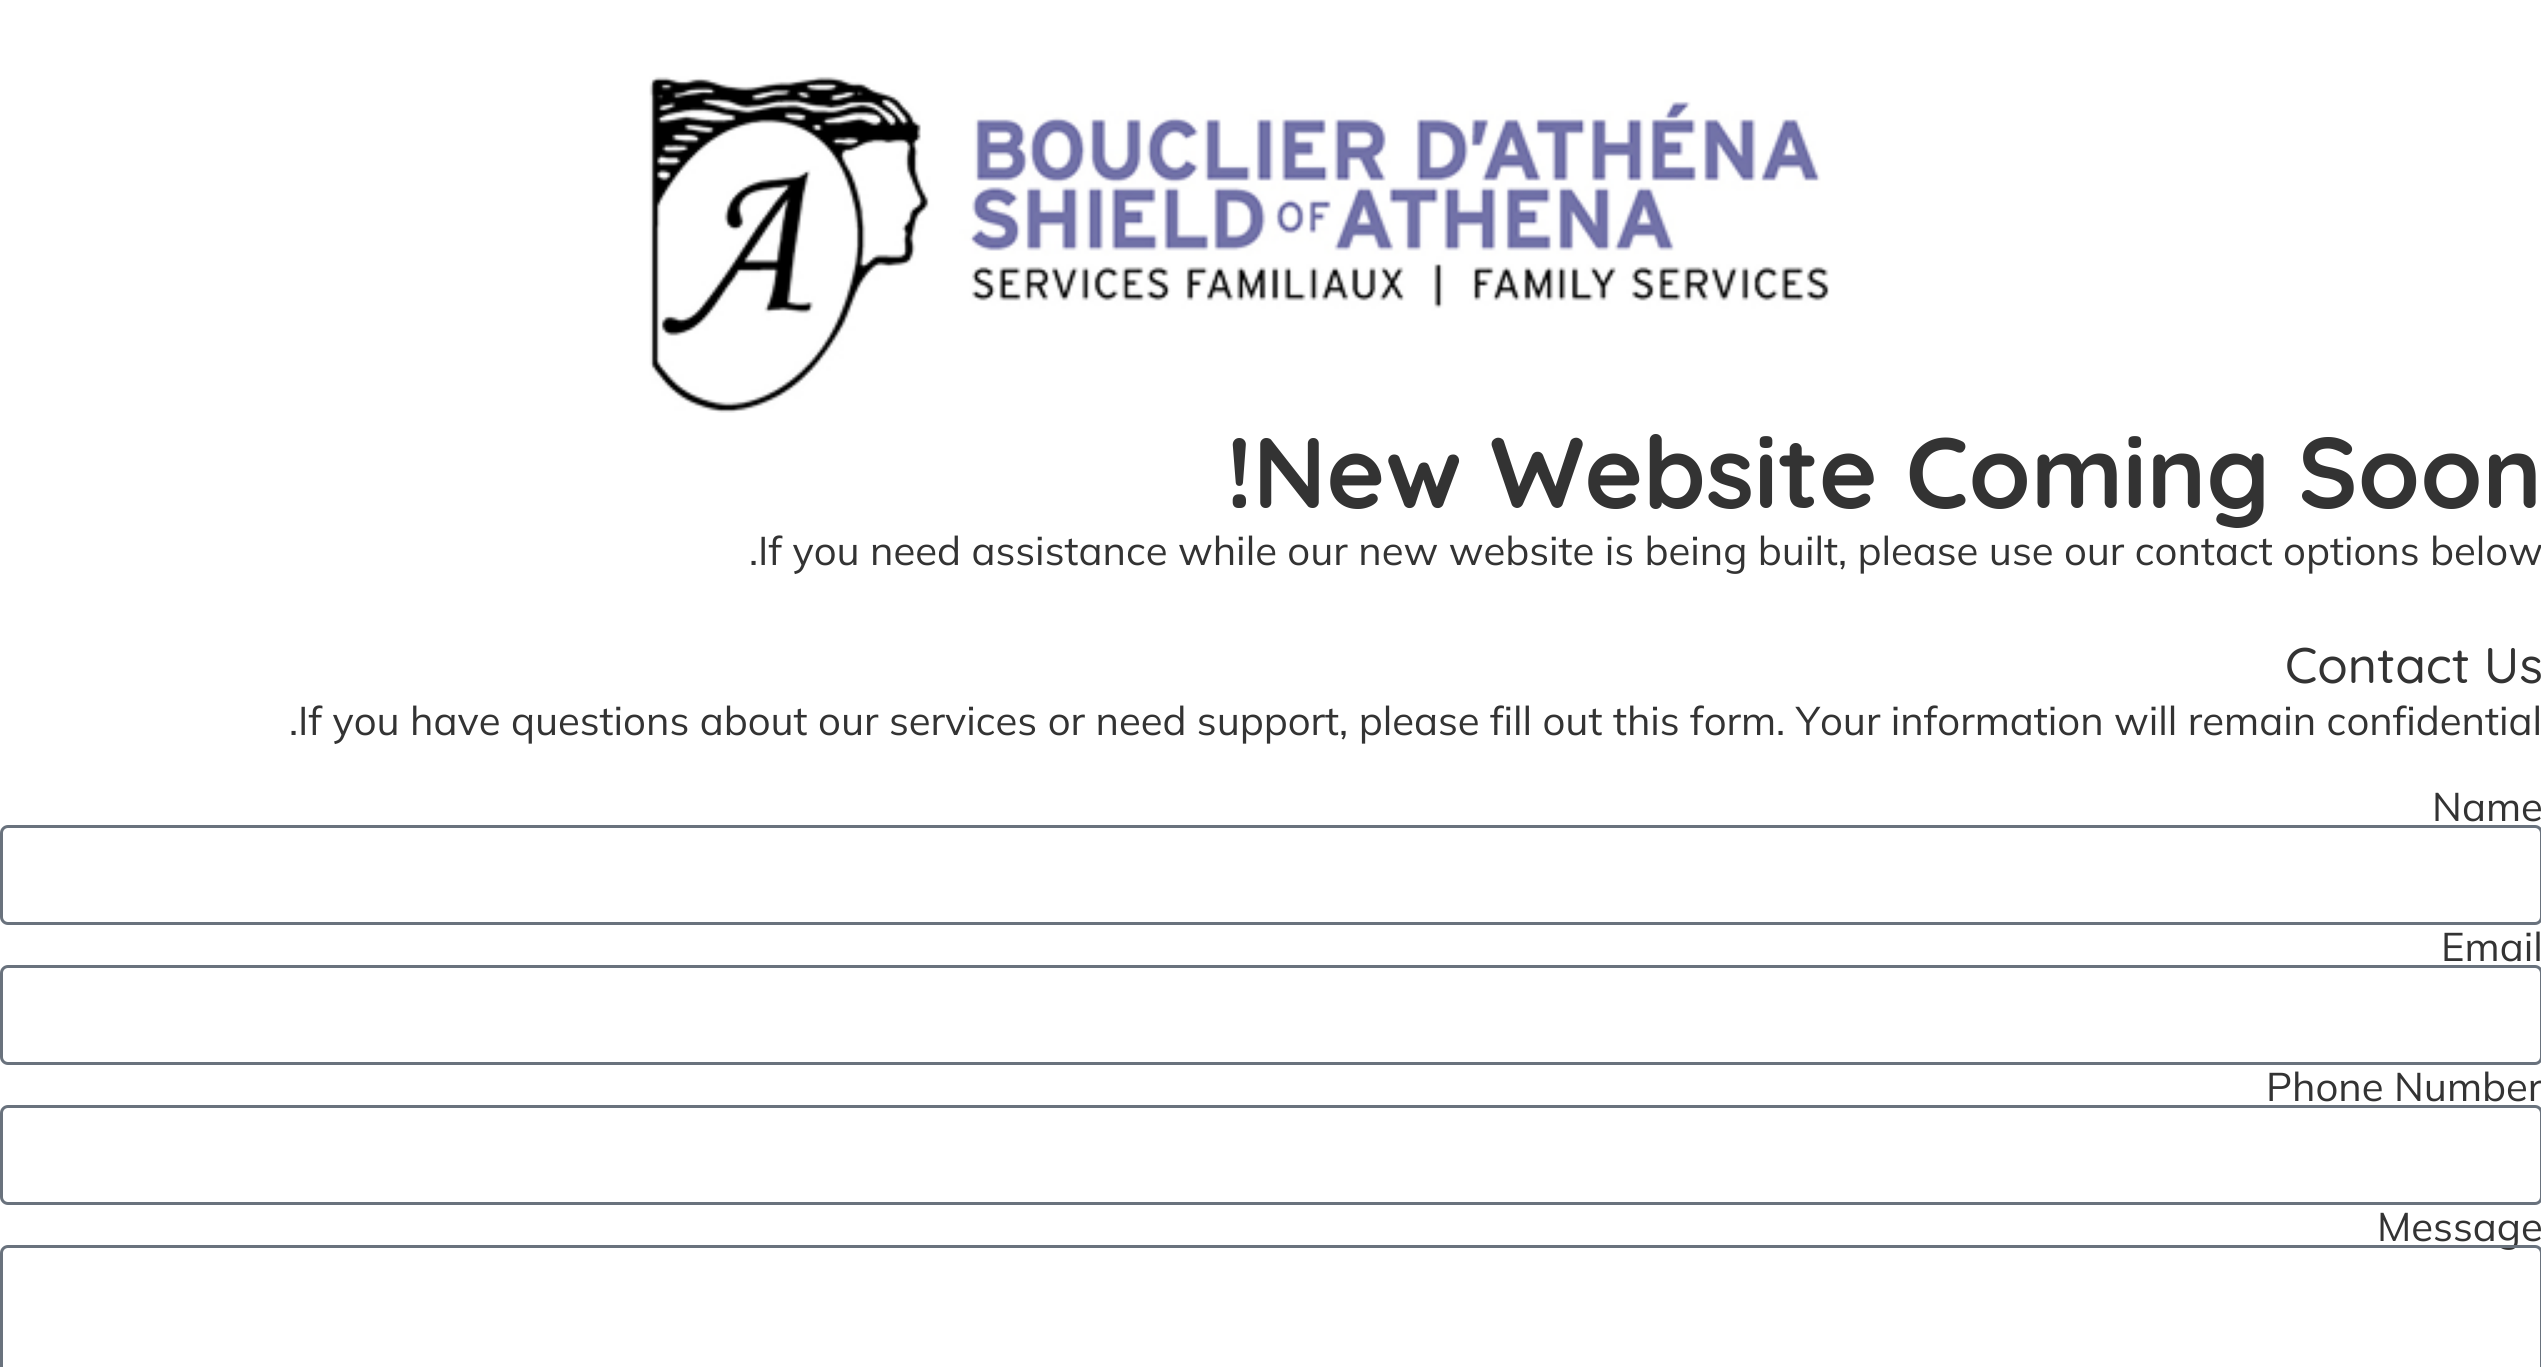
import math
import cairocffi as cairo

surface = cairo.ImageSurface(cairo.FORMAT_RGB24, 2541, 1367)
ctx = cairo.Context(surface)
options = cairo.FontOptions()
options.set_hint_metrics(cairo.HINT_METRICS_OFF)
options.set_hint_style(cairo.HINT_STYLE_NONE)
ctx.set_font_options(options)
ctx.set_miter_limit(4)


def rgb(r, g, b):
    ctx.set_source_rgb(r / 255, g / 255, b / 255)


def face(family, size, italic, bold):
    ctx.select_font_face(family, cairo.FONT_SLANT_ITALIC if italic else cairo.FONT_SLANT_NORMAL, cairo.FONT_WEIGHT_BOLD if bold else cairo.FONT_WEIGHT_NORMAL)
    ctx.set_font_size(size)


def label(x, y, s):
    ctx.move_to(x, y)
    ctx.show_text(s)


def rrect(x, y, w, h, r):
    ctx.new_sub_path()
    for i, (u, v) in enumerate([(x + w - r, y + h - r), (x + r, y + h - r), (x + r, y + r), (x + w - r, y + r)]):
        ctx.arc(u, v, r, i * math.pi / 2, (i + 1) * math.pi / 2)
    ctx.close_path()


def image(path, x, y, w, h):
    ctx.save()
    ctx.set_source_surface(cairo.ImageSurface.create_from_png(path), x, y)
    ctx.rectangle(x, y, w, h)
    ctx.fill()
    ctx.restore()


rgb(255, 255, 255)
ctx.paint()
image('image0.png', 649, 76, 1181, 337)
face('Quicksand', 100, 0, 1)
rgb(51, 51, 51)
label(1226, 508, '!New Website Coming Soon')
face('Mulish', 40, 0, 0)
label(749, 565, '.If you need assistance while our new website is being built, please use our contact options below')
face('Quicksand Medium', 50, 0, 0)
label(2285, 683, 'Contact Us')
face('Mulish', 40, 0, 0)
label(289, 735, '.If you have questions about our services or need support, please fill out this form. Your information will remain confidential')
label(2432, 821, 'Name')
rrect(1.5, 826.5, 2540, 97, 6.5)
rgb(105, 114, 125)
ctx.set_line_width(3)
ctx.stroke()
rgb(51, 51, 51)
label(2441, 961, 'Email')
rrect(1.5, 966.5, 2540, 97, 6.5)
rgb(105, 114, 125)
ctx.stroke()
rgb(51, 51, 51)
label(2266, 1101, 'Phone Number')
rrect(1.5, 1106.5, 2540, 97, 6.5)
rgb(105, 114, 125)
ctx.stroke()
rgb(51, 51, 51)
label(2377, 1241, 'Message')
rrect(1.5, 1246.5, 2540, 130, 6.5)
rgb(105, 114, 125)
ctx.stroke()
surface.write_to_png('render.png')
